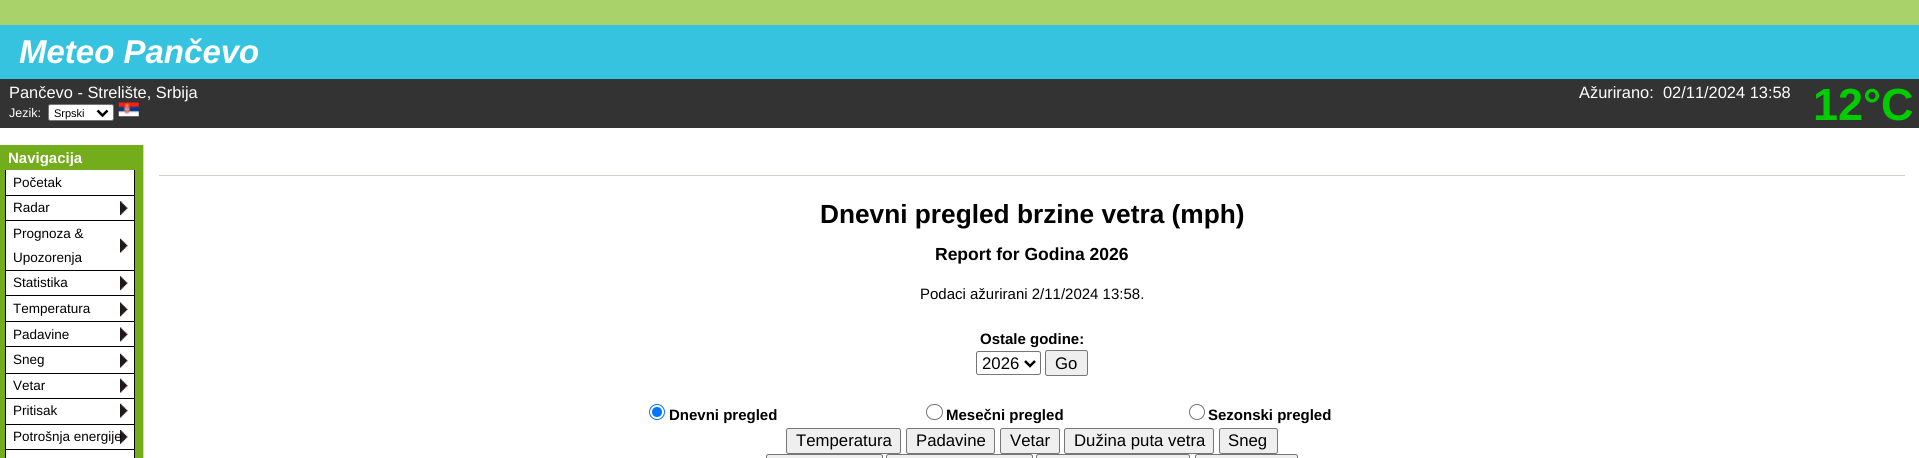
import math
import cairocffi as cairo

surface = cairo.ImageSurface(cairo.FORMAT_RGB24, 1919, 458)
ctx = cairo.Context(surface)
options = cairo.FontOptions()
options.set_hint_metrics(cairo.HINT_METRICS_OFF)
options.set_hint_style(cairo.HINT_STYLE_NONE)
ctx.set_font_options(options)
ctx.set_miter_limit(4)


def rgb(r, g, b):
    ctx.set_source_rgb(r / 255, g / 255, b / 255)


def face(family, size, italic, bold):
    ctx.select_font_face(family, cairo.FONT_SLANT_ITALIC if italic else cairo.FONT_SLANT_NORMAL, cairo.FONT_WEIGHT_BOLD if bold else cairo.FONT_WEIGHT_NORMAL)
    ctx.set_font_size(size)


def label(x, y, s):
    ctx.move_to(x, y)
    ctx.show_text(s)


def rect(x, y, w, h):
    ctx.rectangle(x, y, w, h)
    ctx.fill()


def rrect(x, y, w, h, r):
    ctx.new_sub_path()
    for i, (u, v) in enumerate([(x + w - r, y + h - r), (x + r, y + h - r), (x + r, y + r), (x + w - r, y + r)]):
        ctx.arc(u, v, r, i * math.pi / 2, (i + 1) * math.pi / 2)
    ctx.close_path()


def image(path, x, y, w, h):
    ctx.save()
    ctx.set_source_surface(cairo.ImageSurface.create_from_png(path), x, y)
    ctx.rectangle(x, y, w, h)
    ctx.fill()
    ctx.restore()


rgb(169, 210, 106)
ctx.paint()
rgb(255, 255, 255)
rect(0, 128, 1919, 330)
rgb(54, 195, 224)
rect(0, 25, 1919, 54)
face('Liberation Sans', 33, 1, 1)
rgb(255, 255, 255)
label(19, 63, 'Meteo Pančevo')
rgb(51, 51, 51)
rect(0, 79, 1919, 49)
face('Liberation Sans', 16.4, 0, 0)
rgb(255, 255, 255)
label(9, 98, 'Pančevo - Strelište, Srbija')
face('Liberation Sans', 12.5, 0, 0)
label(9, 117, 'Jezik:')
rrect(48.5, 104.5, 65, 16, 2)
ctx.fill_preserve()
rgb(118, 118, 118)
ctx.set_line_width(1)
ctx.stroke()
ctx.new_path()
ctx.move_to(97.5, 110.5)
ctx.line_to(102.5, 115.5)
ctx.line_to(107.5, 110.5)
rgb(0, 0, 0)
ctx.set_line_width(2.5)
ctx.stroke()
face('Liberation Sans', 11, 0, 0)
label(54, 117, 'Srpski')
image('image0.png', 118, 102, 21, 15)
face('Liberation Sans', 16.4, 0, 0)
rgb(255, 255, 255)
label(1579, 98, 'Ažurirano:')
label(1663, 98, '02/11/2024 13:58')
face('Liberation Sans', 45, 0, 1)
rgb(0, 204, 0)
label(1813, 120, '12°C')
rgb(116, 173, 27)
rect(0, 145, 143, 313)
face('Liberation Sans', 15, 0, 1)
rgb(255, 255, 255)
label(8, 163, 'Navigacija')
rect(6, 170, 128, 25)
rgb(0, 0, 0)
rect(134, 170, 1, 280)
rect(5, 195, 130, 1)
rect(5, 170, 1, 26)
face('Liberation Sans', 13.5, 0, 0)
label(13, 187, 'Početak')
rgb(255, 255, 255)
rect(6, 196, 128, 24)
image('image1.png', 120, 201, 8, 15)
rgb(0, 0, 0)
rect(5, 220, 130, 1)
rect(5, 196, 1, 25)
label(13, 212, 'Radar')
rgb(255, 255, 255)
rect(6, 221, 128, 49)
image('image2.png', 120, 238, 8, 15)
rgb(0, 0, 0)
rect(5, 270, 130, 1)
rect(5, 221, 1, 50)
label(13, 238, 'Prognoza &')
label(13, 262, 'Upozorenja')
rgb(255, 255, 255)
rect(6, 271, 128, 24)
image('image1.png', 120, 276, 8, 15)
rgb(0, 0, 0)
rect(5, 295, 130, 1)
rect(5, 271, 1, 25)
label(13, 287, 'Statistika')
rgb(255, 255, 255)
rect(6, 296, 128, 77)
image('image3.png', 120, 302, 8, 15)
rgb(0, 0, 0)
rect(5, 321, 130, 1)
rect(5, 296, 1, 27)
label(13, 313, 'Temperatura')
image('image3.png', 120, 327, 8, 15)
rect(5, 346, 130, 1)
rect(5, 323, 1, 25)
label(13, 339, 'Padavine')
image('image2.png', 120, 353, 8, 15)
rect(5, 373, 130, 1)
rect(5, 348, 1, 26)
label(13, 364, 'Sneg')
rgb(255, 255, 255)
rect(6, 374, 128, 24)
image('image2.png', 120, 378, 8, 15)
rgb(0, 0, 0)
rect(5, 398, 130, 1)
rect(5, 374, 1, 25)
label(13, 390, 'Vetar')
rgb(255, 255, 255)
rect(6, 399, 128, 25)
image('image2.png', 120, 403, 8, 15)
rgb(0, 0, 0)
rect(5, 424, 130, 1)
rect(5, 399, 1, 26)
label(13, 415, 'Pritisak')
rgb(255, 255, 255)
rect(6, 425, 128, 24)
image('image4.png', 120, 430, 8, 14)
rgb(0, 0, 0)
rect(5, 449, 130, 1)
rect(5, 425, 1, 25)
label(13, 441, 'Potrošnja energije')
rgb(255, 255, 255)
rect(5, 450, 130, 8)
rgb(0, 0, 0)
rect(134, 450, 1, 8)
rect(5, 450, 1, 8)
rgb(216, 210, 195)
rect(143, 145, 1, 313)
rect(159, 175, 1746, 1)
face('Liberation Sans', 26.25, 0, 1)
rgb(0, 0, 0)
label(820, 223, 'Dnevni pregled brzine vetra (mph)')
face('Liberation Sans', 17.5, 0, 1)
label(935, 260, 'Report for Godina 2026')
face('Liberation Sans', 15, 0, 0)
label(920, 299, 'Podaci ažurirani 2/11/2024 13:58.')
face('Liberation Sans', 15, 0, 1)
label(980, 344, 'Ostale godine:')
rrect(976.5, 351.5, 64, 23, 2)
rgb(118, 118, 118)
ctx.set_line_width(1)
ctx.stroke()
ctx.new_path()
ctx.move_to(1025, 361)
ctx.line_to(1030, 366)
ctx.line_to(1035, 361)
rgb(0, 0, 0)
ctx.set_line_width(2.5)
ctx.stroke()
face('Liberation Sans', 16.75, 0, 0)
label(982, 369, '2026')
rgb(239, 239, 239)
rrect(1045.5, 350.5, 42, 25, 2)
ctx.fill_preserve()
rgb(118, 118, 118)
ctx.set_line_width(1)
ctx.stroke()
rgb(0, 0, 0)
label(1055, 369, 'Go')
ctx.new_path()
ctx.arc(657, 412, 7.5, 0, 2 * math.pi)
rgb(0, 117, 255)
ctx.stroke()
ctx.arc(657, 412, 5, 0, 2 * math.pi)
ctx.fill()
face('Liberation Sans', 15, 0, 1)
rgb(0, 0, 0)
label(669, 420, 'Dnevni pregled')
rrect(926.5, 404.5, 16, 15, 7.5)
rgb(118, 118, 118)
ctx.stroke()
rgb(0, 0, 0)
label(946, 420, 'Mesečni pregled')
ctx.new_path()
ctx.arc(1197, 412, 7.5, 0, 2 * math.pi)
rgb(118, 118, 118)
ctx.stroke()
rgb(0, 0, 0)
label(1208, 420, 'Sezonski pregled')
rgb(239, 239, 239)
rrect(786.5, 428.5, 114, 25, 2)
ctx.fill_preserve()
rgb(118, 118, 118)
ctx.stroke()
face('Liberation Sans', 16.75, 0, 0)
rgb(0, 0, 0)
label(796, 446, 'Temperatura')
rgb(239, 239, 239)
rrect(906.5, 428.5, 88, 25, 2)
ctx.fill_preserve()
rgb(118, 118, 118)
ctx.stroke()
rgb(0, 0, 0)
label(916, 446, 'Padavine')
rgb(239, 239, 239)
rrect(1000.5, 428.5, 59, 25, 2)
ctx.fill_preserve()
rgb(118, 118, 118)
ctx.stroke()
rgb(0, 0, 0)
label(1010, 446, 'Vetar')
rgb(239, 239, 239)
rrect(1064.5, 428.5, 149, 25, 2)
ctx.fill_preserve()
rgb(118, 118, 118)
ctx.stroke()
rgb(0, 0, 0)
label(1074, 446, 'Dužina puta vetra')
rgb(239, 239, 239)
rrect(1219.5, 428.5, 58, 25, 2)
ctx.fill_preserve()
rgb(118, 118, 118)
ctx.stroke()
rgb(0, 0, 0)
label(1228, 446, 'Sneg')
rgb(239, 239, 239)
rrect(766.5, 454.5, 116, 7, 2)
ctx.fill_preserve()
rgb(118, 118, 118)
ctx.stroke()
rgb(239, 239, 239)
rrect(886.5, 454.5, 146, 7, 2)
ctx.fill_preserve()
rgb(118, 118, 118)
ctx.stroke()
rgb(239, 239, 239)
rrect(1036.5, 454.5, 153, 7, 2)
ctx.fill_preserve()
rgb(118, 118, 118)
ctx.stroke()
rgb(239, 239, 239)
rrect(1195.5, 454.5, 102, 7, 2)
ctx.fill_preserve()
rgb(118, 118, 118)
ctx.stroke()
surface.write_to_png('render.png')
